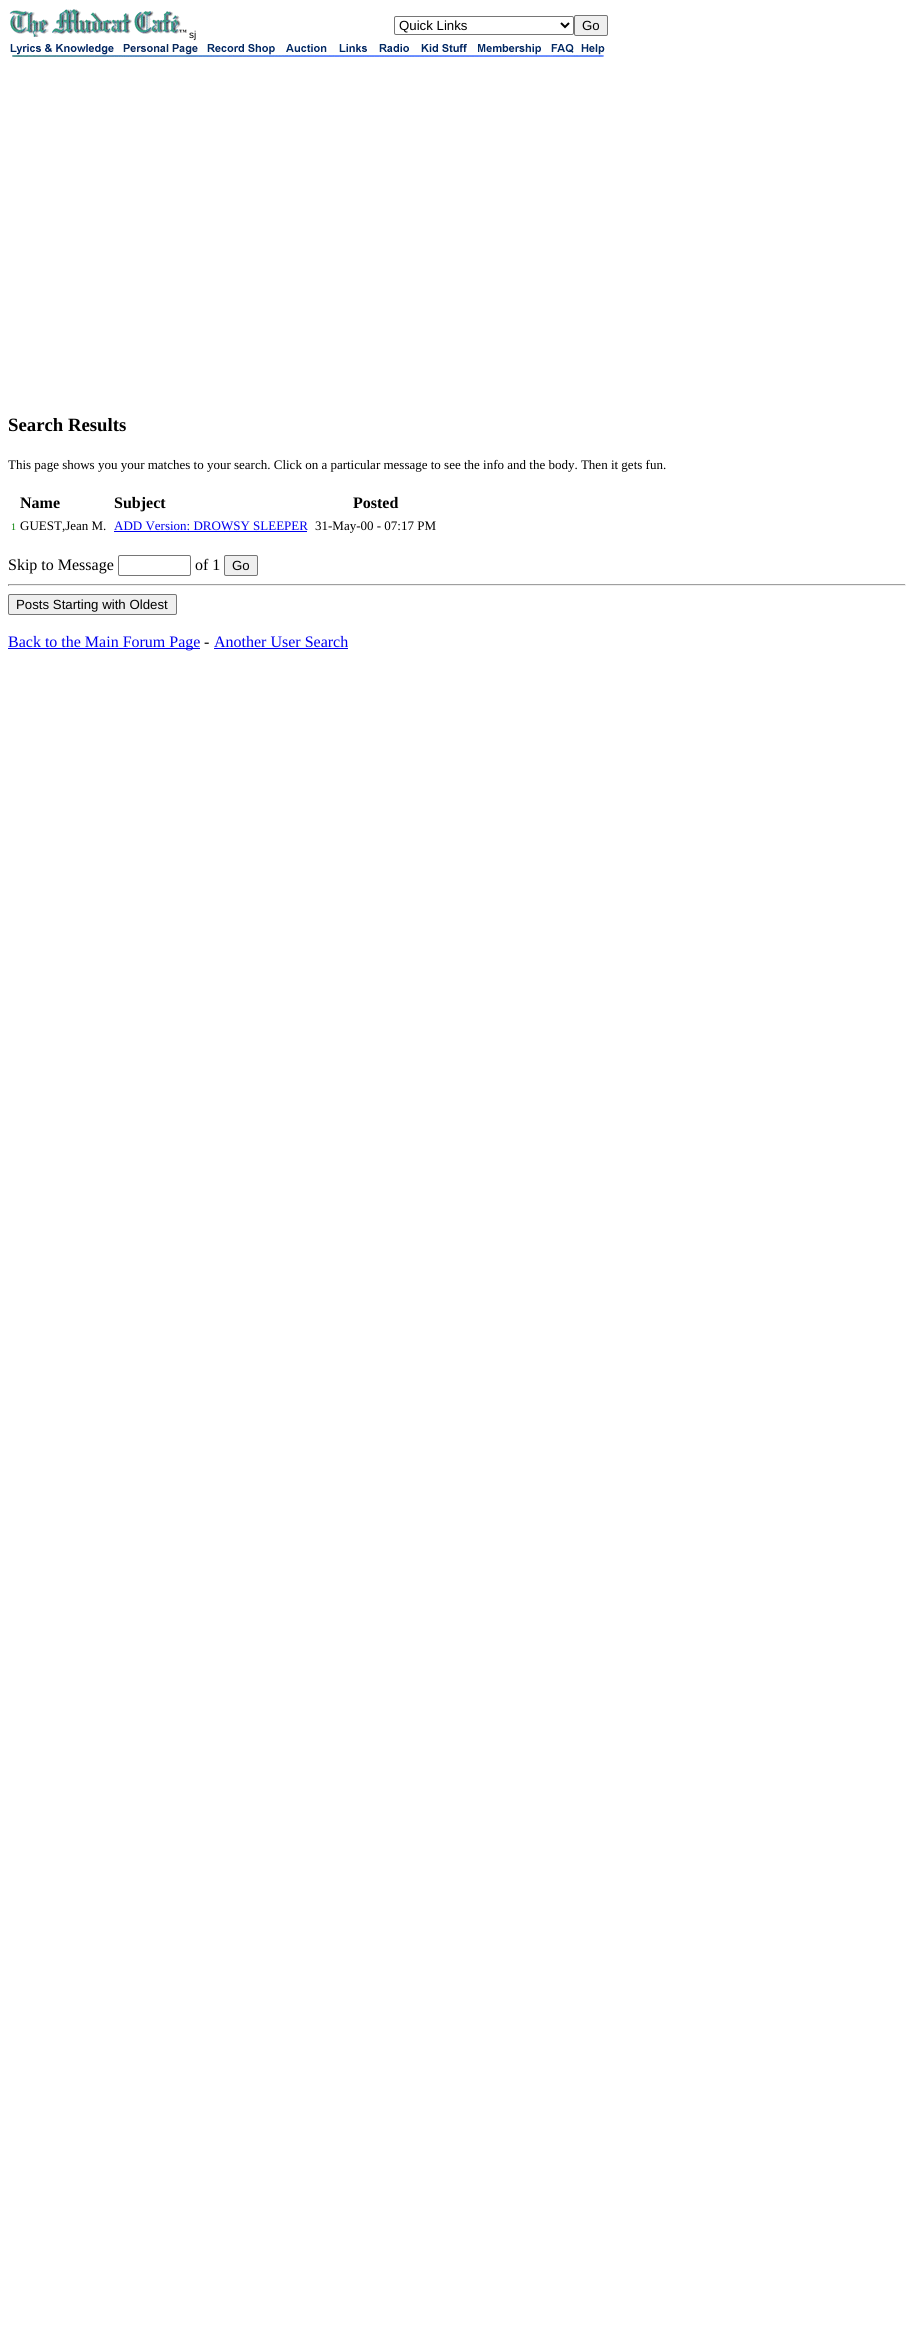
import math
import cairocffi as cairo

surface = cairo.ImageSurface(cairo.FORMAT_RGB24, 914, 2344)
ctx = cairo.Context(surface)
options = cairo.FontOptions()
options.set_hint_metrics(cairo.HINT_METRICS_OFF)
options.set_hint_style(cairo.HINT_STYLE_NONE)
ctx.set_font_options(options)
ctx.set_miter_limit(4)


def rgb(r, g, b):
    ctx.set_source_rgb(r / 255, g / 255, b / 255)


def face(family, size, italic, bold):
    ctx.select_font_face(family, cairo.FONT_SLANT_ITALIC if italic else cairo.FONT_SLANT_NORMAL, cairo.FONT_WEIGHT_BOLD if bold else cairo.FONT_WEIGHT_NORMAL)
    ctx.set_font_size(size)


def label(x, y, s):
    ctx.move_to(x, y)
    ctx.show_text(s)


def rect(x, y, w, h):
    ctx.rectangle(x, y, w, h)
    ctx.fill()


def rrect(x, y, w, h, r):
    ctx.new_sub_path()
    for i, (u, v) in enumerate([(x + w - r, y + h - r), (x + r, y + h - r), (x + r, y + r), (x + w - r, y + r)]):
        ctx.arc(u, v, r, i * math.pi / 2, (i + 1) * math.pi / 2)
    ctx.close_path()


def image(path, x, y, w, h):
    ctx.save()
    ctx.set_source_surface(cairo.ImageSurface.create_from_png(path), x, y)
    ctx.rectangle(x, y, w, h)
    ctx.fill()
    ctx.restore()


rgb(255, 255, 255)
ctx.paint()
rrect(394.5, 16.5, 179, 18, 1.5)
rgb(118, 118, 118)
ctx.set_line_width(1)
ctx.stroke()
ctx.new_path()
ctx.move_to(561, 23)
ctx.line_to(565, 27)
ctx.line_to(569, 23)
rgb(0, 0, 0)
ctx.set_line_width(2)
ctx.stroke()
face('Liberation Sans', 13.25, 0, 0)
label(399, 30, 'Quick Links')
rgb(239, 239, 239)
rrect(574.5, 15.5, 33, 20, 1.5)
ctx.fill_preserve()
rgb(118, 118, 118)
ctx.set_line_width(1)
ctx.stroke()
rgb(0, 0, 0)
label(582, 30, 'Go')
image('image0.png', 9, 9, 178, 28)
face('Liberation Sans', 10, 0, 0)
label(189, 38, 'sj')
image('image1.png', 10, 44, 595, 13)
face('Liberation Serif', 18.75, 0, 1)
label(8, 431, 'Search Results')
face('Liberation Serif', 13, 0, 0)
label(8, 469, 'This page shows you your matches to your search. Click on a particular message to see the info and the body. Then it gets fun.')
face('Liberation Serif', 16, 0, 1)
label(20, 508, 'Name')
label(114, 508, 'Subject')
label(353, 508, 'Posted')
face('Liberation Serif', 10, 0, 0)
rgb(0, 128, 0)
label(11, 530, '1')
face('Liberation Serif', 13, 0, 0)
rgb(0, 0, 0)
label(20, 530, 'GUEST,Jean M.')
rgb(0, 0, 238)
label(114, 530, 'ADD Version: DROWSY SLEEPER')
rect(114, 531, 193, 1)
rgb(0, 0, 0)
label(315, 530, '31-May-00 - 07:17 PM')
face('Liberation Serif', 16, 0, 0)
label(8, 570, 'Skip to Message')
rrect(118.5, 555.5, 72, 20, 1.5)
rgb(118, 118, 118)
ctx.stroke()
rgb(0, 0, 0)
label(195, 570, 'of 1')
rgb(239, 239, 239)
rrect(224.5, 555.5, 33, 20, 1.5)
ctx.fill_preserve()
rgb(118, 118, 118)
ctx.stroke()
face('Liberation Sans', 13.25, 0, 0)
rgb(0, 0, 0)
label(232, 570, 'Go')
rgb(159, 159, 159)
rect(8, 584, 898, 1)
rgb(238, 238, 238)
rect(905, 584, 1, 2)
rect(8, 585, 898, 1)
rgb(159, 159, 159)
rect(8, 584, 1, 2)
rgb(239, 239, 239)
rrect(8.5, 594.5, 168, 20, 1.5)
ctx.fill_preserve()
rgb(118, 118, 118)
ctx.stroke()
rgb(0, 0, 0)
label(16, 609, 'Posts Starting with Oldest')
rgb(0, 0, 238)
rect(8, 648, 192, 1)
face('Liberation Serif', 16, 0, 0)
label(8, 647, 'Back to the Main Forum Page')
rgb(0, 0, 0)
label(204, 647, '-')
rgb(0, 0, 238)
label(214, 647, 'Another User Search')
rect(214, 648, 134, 1)
surface.write_to_png('render.png')
